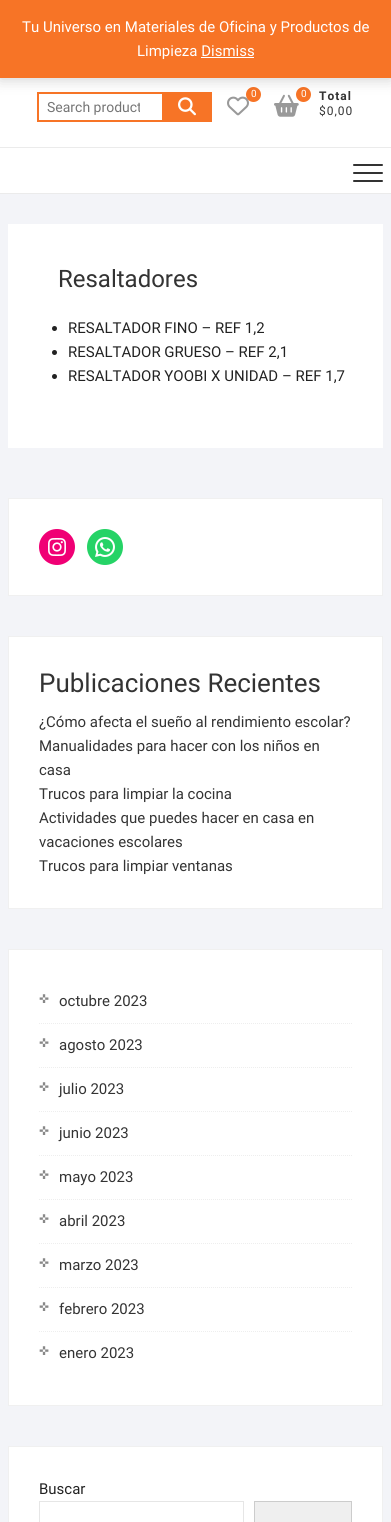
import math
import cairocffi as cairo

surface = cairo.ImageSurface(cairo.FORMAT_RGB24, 391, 1522)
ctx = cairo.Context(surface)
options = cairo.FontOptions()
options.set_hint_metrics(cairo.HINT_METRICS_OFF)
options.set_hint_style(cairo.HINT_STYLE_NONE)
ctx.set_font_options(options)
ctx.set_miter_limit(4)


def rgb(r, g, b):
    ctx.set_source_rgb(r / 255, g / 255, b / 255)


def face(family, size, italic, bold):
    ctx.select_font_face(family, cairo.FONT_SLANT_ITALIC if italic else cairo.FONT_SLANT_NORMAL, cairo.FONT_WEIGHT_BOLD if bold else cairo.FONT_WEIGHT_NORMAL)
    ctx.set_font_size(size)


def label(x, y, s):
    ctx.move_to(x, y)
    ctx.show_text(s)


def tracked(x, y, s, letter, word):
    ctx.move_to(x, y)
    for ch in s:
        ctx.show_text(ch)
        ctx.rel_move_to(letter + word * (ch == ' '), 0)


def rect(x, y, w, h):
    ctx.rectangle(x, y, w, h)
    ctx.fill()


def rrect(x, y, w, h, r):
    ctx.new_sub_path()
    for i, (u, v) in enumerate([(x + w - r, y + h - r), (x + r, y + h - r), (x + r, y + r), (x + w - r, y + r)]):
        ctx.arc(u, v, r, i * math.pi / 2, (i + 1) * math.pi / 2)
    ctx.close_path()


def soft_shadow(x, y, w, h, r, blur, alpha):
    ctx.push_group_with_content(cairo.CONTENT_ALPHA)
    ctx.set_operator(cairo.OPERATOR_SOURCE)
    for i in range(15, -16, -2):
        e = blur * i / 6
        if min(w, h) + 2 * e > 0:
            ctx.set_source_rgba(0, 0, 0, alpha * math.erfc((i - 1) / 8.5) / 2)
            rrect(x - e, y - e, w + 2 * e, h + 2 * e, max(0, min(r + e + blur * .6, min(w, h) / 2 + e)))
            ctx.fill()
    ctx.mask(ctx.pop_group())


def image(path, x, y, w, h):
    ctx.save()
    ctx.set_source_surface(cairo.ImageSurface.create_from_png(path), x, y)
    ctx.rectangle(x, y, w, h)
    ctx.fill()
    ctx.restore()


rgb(243, 244, 248)
ctx.paint()
rgb(255, 255, 255)
rect(0, 78, 391, 115)
rgb(247, 116, 38)
rect(37, 92, 125, 2)
rect(37, 120, 125, 2)
rect(37, 92, 2, 30)
rect(162, 92, 50, 30)
image('image0.png', 178, 97, 18, 19)
image('image1.png', 227, 96, 22, 20)
ctx.arc(253.5, 94.5, 7.5, 0, 2 * math.pi)
ctx.fill()
image('image2.png', 274, 94, 25, 23)
ctx.arc(303.5, 94.5, 7.5, 0, 2 * math.pi)
ctx.fill()
rgb(0, 0, 0)
soft_shadow(0, 1, 391, 78, 0, 7.5, 0.2)
rgb(247, 116, 38)
rect(0, 0, 391, 78)
face('Roboto', 15, 0, 0)
rgb(255, 255, 255)
label(22, 32, 'Tu Universo en Materiales de Oficina y Productos de')
label(137, 56, 'Limpieza Dismiss')
rect(201, 57, 53, 1)
ctx.save()
ctx.rectangle(47, 99, 93, 16)
ctx.clip()
face('Roboto', 14, 0, 0)
rgb(117, 117, 117)
label(47, 112, 'Search product')
ctx.restore()
face('Roboto', 10, 0, 0)
label(251, 97, '0')
label(301, 97, '0')
face('Roboto', 12, 0, 1)
rgb(51, 51, 51)
tracked(319, 100, 'Total', 1, 0)
face('Roboto', 12, 0, 0)
tracked(319, 115, '$0,00', 1, 0)
rgb(235, 235, 235)
rect(0, 147, 391, 1)
rect(0, 193, 391, 1)
rgb(51, 51, 51)
rrect(353, 172, 30, 2, 1)
ctx.fill()
rrect(353, 164, 30, 2, 1)
ctx.fill()
rrect(353, 180, 30, 2, 1)
ctx.fill()
rgb(255, 255, 255)
rect(8, 224, 375, 224)
face('Roboto', 24, 0, 0)
rgb(51, 51, 51)
label(58, 287, 'Resaltadores')
rgb(34, 34, 34)
ctx.new_path()
ctx.arc(54.5, 328.5, 2.5, 0, 2 * math.pi)
ctx.fill()
face('Roboto', 15, 0, 0)
label(68, 333, 'RESALTADOR FINO – REF 1,2')
ctx.new_path()
ctx.arc(54.5, 352.5, 2.5, 0, 2 * math.pi)
ctx.fill()
label(68, 357, 'RESALTADOR GRUESO – REF 2,1')
ctx.new_path()
ctx.arc(54.5, 376.5, 2.5, 0, 2 * math.pi)
ctx.fill()
label(68, 381, 'RESALTADOR YOOBI X UNIDAD – REF 1,7')
rgb(255, 255, 255)
ctx.rectangle(8.5, 498.5, 374, 97)
ctx.fill_preserve()
rgb(240, 240, 240)
ctx.set_line_width(1)
ctx.stroke()
rgb(240, 0, 117)
ctx.arc(57, 547, 18, 0, 2 * math.pi)
ctx.fill()
image('image3.png', 48, 538, 18, 18)
rgb(37, 211, 102)
ctx.arc(105, 547, 18, 0, 2 * math.pi)
ctx.fill()
image('image4.png', 95, 537, 20, 20)
rgb(255, 255, 255)
ctx.rectangle(8.5, 636.5, 374, 272)
ctx.fill_preserve()
rgb(240, 240, 240)
ctx.stroke()
face('Roboto', 26, 0, 0)
rgb(51, 51, 51)
label(39, 692, 'Publicaciones Recientes')
face('Roboto', 15, 0, 0)
label(39, 727, '¿Cómo afecta el sueño al rendimiento escolar?')
label(39, 751, 'Manualidades para hacer con los niños en')
label(39, 775, 'casa')
label(39, 799, 'Trucos para limpiar la cocina')
label(39, 823, 'Actividades que puedes hacer en casa en')
label(39, 847, 'vacaciones escolares')
label(39, 871, 'Trucos para limpiar ventanas')
rgb(255, 255, 255)
ctx.rectangle(8.5, 949.5, 374, 456)
ctx.fill_preserve()
rgb(240, 240, 240)
ctx.stroke()
ctx.new_path()
ctx.move_to(39, 1023.5)
ctx.line_to(352, 1023.5)
rgb(238, 238, 238)
ctx.set_dash([1, 1])
ctx.stroke()
face('DejaVu Sans', 12, 0, 0)
rgb(136, 136, 136)
label(39, 1003, '✜')
face('Roboto', 15, 0, 0)
rgb(51, 51, 51)
label(59, 1006, 'octubre 2023')
ctx.new_path()
ctx.move_to(39, 1067.5)
ctx.line_to(352, 1067.5)
rgb(238, 238, 238)
ctx.stroke()
face('DejaVu Sans', 12, 0, 0)
rgb(136, 136, 136)
label(39, 1047, '✜')
face('Roboto', 15, 0, 0)
rgb(51, 51, 51)
label(59, 1050, 'agosto 2023')
ctx.new_path()
ctx.move_to(39, 1111.5)
ctx.line_to(352, 1111.5)
rgb(238, 238, 238)
ctx.stroke()
face('DejaVu Sans', 12, 0, 0)
rgb(136, 136, 136)
label(39, 1091, '✜')
face('Roboto', 15, 0, 0)
rgb(51, 51, 51)
label(59, 1094, 'julio 2023')
ctx.new_path()
ctx.move_to(39, 1155.5)
ctx.line_to(352, 1155.5)
rgb(238, 238, 238)
ctx.stroke()
face('DejaVu Sans', 12, 0, 0)
rgb(136, 136, 136)
label(39, 1135, '✜')
face('Roboto', 15, 0, 0)
rgb(51, 51, 51)
label(59, 1138, 'junio 2023')
ctx.new_path()
ctx.move_to(39, 1199.5)
ctx.line_to(352, 1199.5)
rgb(238, 238, 238)
ctx.stroke()
face('DejaVu Sans', 12, 0, 0)
rgb(136, 136, 136)
label(39, 1179, '✜')
face('Roboto', 15, 0, 0)
rgb(51, 51, 51)
label(59, 1182, 'mayo 2023')
ctx.new_path()
ctx.move_to(39, 1243.5)
ctx.line_to(352, 1243.5)
rgb(238, 238, 238)
ctx.stroke()
face('DejaVu Sans', 12, 0, 0)
rgb(136, 136, 136)
label(39, 1223, '✜')
face('Roboto', 15, 0, 0)
rgb(51, 51, 51)
label(59, 1226, 'abril 2023')
ctx.new_path()
ctx.move_to(39, 1287.5)
ctx.line_to(352, 1287.5)
rgb(238, 238, 238)
ctx.stroke()
face('DejaVu Sans', 12, 0, 0)
rgb(136, 136, 136)
label(39, 1267, '✜')
face('Roboto', 15, 0, 0)
rgb(51, 51, 51)
label(59, 1270, 'marzo 2023')
ctx.new_path()
ctx.move_to(39, 1331.5)
ctx.line_to(352, 1331.5)
rgb(238, 238, 238)
ctx.stroke()
face('DejaVu Sans', 12, 0, 0)
rgb(136, 136, 136)
label(39, 1311, '✜')
face('Roboto', 15, 0, 0)
rgb(51, 51, 51)
label(59, 1314, 'febrero 2023')
face('DejaVu Sans', 12, 0, 0)
rgb(136, 136, 136)
label(39, 1355, '✜')
face('Roboto', 15, 0, 0)
rgb(51, 51, 51)
label(59, 1358, 'enero 2023')
rgb(255, 255, 255)
ctx.rectangle(8.5, 1446.5, 374, 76)
ctx.fill_preserve()
rgb(240, 240, 240)
ctx.set_dash([])
ctx.stroke()
rgb(34, 34, 34)
label(39, 1494, 'Buscar')
ctx.rectangle(39.5, 1501.5, 204, 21)
rgb(230, 230, 230)
ctx.stroke()
rgb(239, 239, 239)
ctx.rectangle(254.5, 1501.5, 97, 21)
ctx.fill_preserve()
rgb(204, 204, 204)
ctx.stroke()
surface.write_to_png('render.png')
